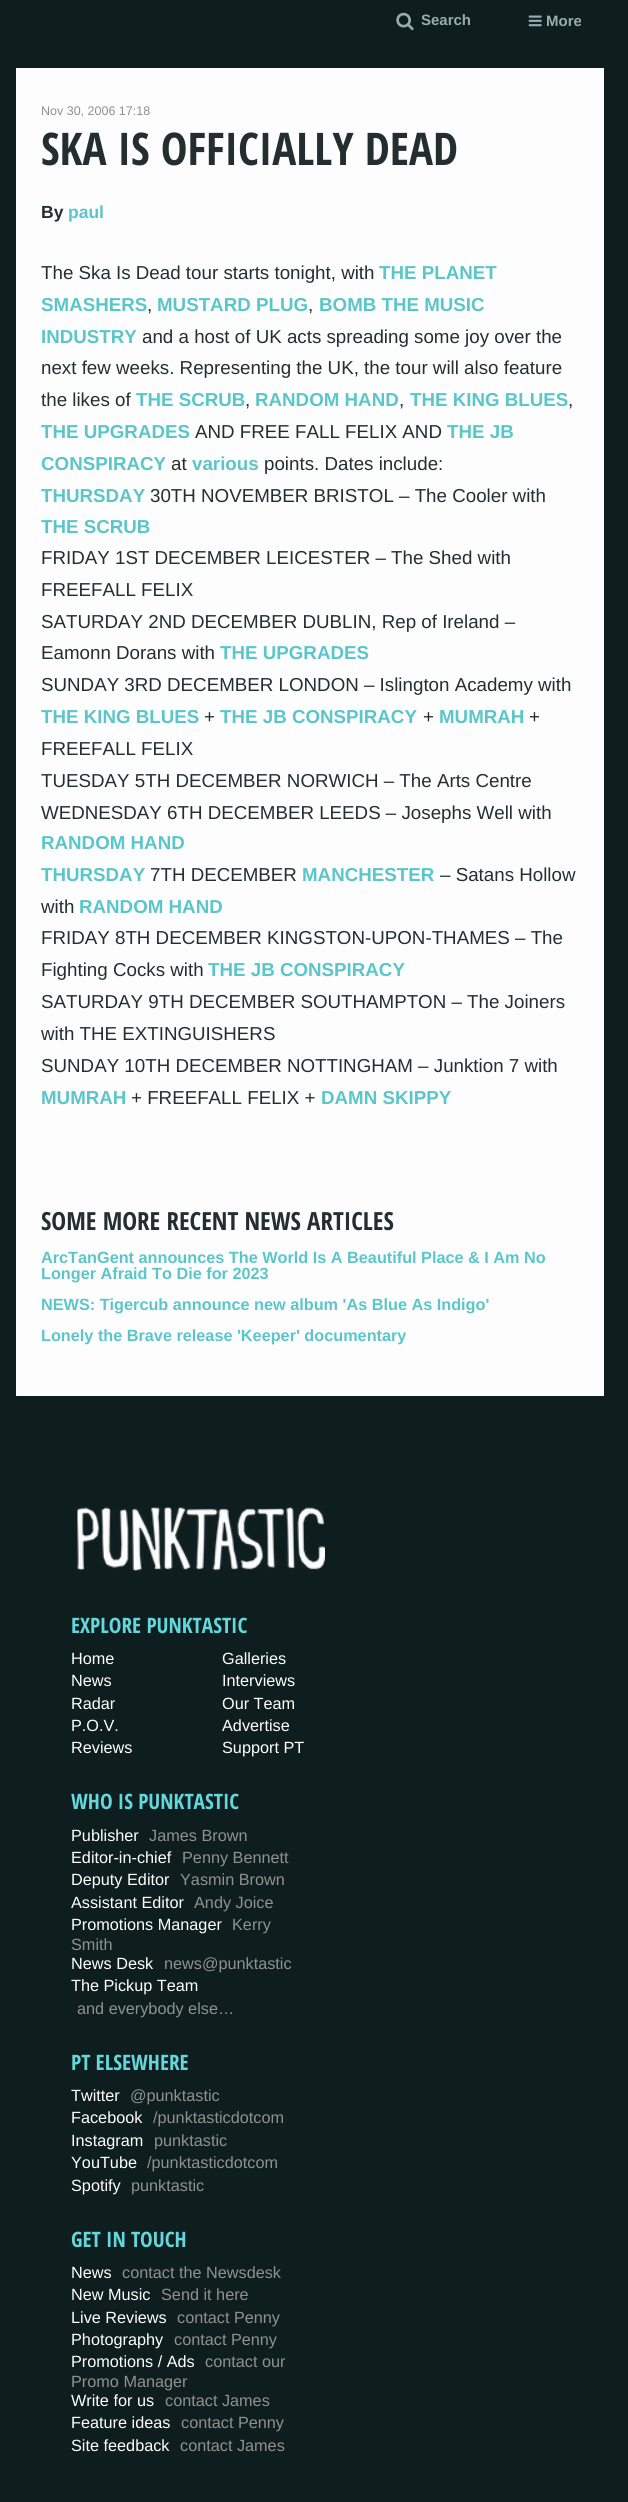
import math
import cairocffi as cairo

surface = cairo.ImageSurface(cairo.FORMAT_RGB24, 628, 2502)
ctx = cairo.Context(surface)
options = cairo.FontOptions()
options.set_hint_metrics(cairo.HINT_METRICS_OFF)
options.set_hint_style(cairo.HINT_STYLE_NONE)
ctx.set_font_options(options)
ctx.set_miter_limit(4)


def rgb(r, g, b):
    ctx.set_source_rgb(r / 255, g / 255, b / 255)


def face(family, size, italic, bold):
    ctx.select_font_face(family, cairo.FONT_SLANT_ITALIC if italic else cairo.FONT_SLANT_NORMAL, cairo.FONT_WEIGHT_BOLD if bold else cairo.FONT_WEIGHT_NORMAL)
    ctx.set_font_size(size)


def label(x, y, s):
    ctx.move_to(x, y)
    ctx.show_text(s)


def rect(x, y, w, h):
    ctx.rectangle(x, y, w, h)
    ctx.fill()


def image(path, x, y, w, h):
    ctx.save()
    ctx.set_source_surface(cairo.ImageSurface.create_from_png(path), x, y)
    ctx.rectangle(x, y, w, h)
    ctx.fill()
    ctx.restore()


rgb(14, 30, 31)
ctx.paint()
image('image0.png', 396, 12, 18, 19)
face('Liberation Sans', 15, 0, 1)
rgb(150, 173, 174)
label(421, 25, 'Search')
image('image1.png', 528, 15, 14, 12)
label(546, 26, 'More')
rgb(253, 253, 253)
rect(16, 68, 588, 1328)
face('Liberation Sans', 12.5, 0, 0)
rgb(144, 144, 144)
label(41, 115, 'Nov 30, 2006 17:18')
face('Open Sans Condensed', 45, 0, 1)
rgb(35, 47, 47)
label(41, 165, 'SKA IS OFFICIALLY DEAD')
face('Liberation Sans', 17.5, 0, 1)
label(41, 218, 'By')
rgb(90, 198, 202)
label(68, 218, 'paul')
face('Liberation Sans', 18.75, 0, 0)
rgb(35, 47, 47)
label(41, 279, 'The Ska Is Dead tour starts tonight, with')
face('Liberation Sans', 18.75, 0, 1)
rgb(90, 198, 202)
label(379, 279, 'THE PLANET')
label(41, 311, 'SMASHERS')
face('Liberation Sans', 18.75, 0, 0)
rgb(35, 47, 47)
label(147, 311, ',')
face('Liberation Sans', 18.75, 0, 1)
rgb(90, 198, 202)
label(157, 311, 'MUSTARD PLUG')
face('Liberation Sans', 18.75, 0, 0)
rgb(35, 47, 47)
label(308, 311, ',')
face('Liberation Sans', 18.75, 0, 1)
rgb(90, 198, 202)
label(319, 311, 'BOMB THE MUSIC')
label(41, 343, 'INDUSTRY')
face('Liberation Sans', 18.75, 0, 0)
rgb(35, 47, 47)
label(142, 343, 'and a host of UK acts spreading some joy over the')
label(41, 374, 'next few weeks. Representing the UK, the tour will also feature')
label(41, 406, 'the likes of')
face('Liberation Sans', 18.75, 0, 1)
rgb(90, 198, 202)
label(136, 406, 'THE SCRUB')
face('Liberation Sans', 18.75, 0, 0)
rgb(35, 47, 47)
label(245, 406, ',')
face('Liberation Sans', 18.75, 0, 1)
rgb(90, 198, 202)
label(255, 406, 'RANDOM HAND')
face('Liberation Sans', 18.75, 0, 0)
rgb(35, 47, 47)
label(399, 406, ',')
face('Liberation Sans', 18.75, 0, 1)
rgb(90, 198, 202)
label(410, 406, 'THE KING BLUES')
face('Liberation Sans', 18.75, 0, 0)
rgb(35, 47, 47)
label(568, 406, ',')
face('Liberation Sans', 18.75, 0, 1)
rgb(90, 198, 202)
label(41, 438, 'THE UPGRADES')
face('Liberation Sans', 18.75, 0, 0)
rgb(35, 47, 47)
label(195, 438, 'AND FREE FALL FELIX AND')
face('Liberation Sans', 18.75, 0, 1)
rgb(90, 198, 202)
label(447, 438, 'THE JB')
label(41, 470, 'CONSPIRACY')
face('Liberation Sans', 18.75, 0, 0)
rgb(35, 47, 47)
label(171, 470, 'at')
face('Liberation Sans', 18.75, 0, 1)
rgb(90, 198, 202)
label(192, 470, 'various')
face('Liberation Sans', 18.75, 0, 0)
rgb(35, 47, 47)
label(264, 470, 'points. Dates include:')
face('Liberation Sans', 18.75, 0, 1)
rgb(90, 198, 202)
label(41, 502, 'THURSDAY')
face('Liberation Sans', 18.75, 0, 0)
rgb(35, 47, 47)
label(150, 502, '30TH NOVEMBER BRISTOL – The Cooler with')
face('Liberation Sans', 18.75, 0, 1)
rgb(90, 198, 202)
label(41, 533, 'THE SCRUB')
face('Liberation Sans', 18.75, 0, 0)
rgb(35, 47, 47)
label(41, 564, 'FRIDAY 1ST DECEMBER LEICESTER – The Shed with')
label(41, 596, 'FREEFALL FELIX')
label(41, 628, 'SATURDAY 2ND DECEMBER DUBLIN, Rep of Ireland –')
label(41, 659, 'Eamonn Dorans with')
face('Liberation Sans', 18.75, 0, 1)
rgb(90, 198, 202)
label(220, 659, 'THE UPGRADES')
face('Liberation Sans', 18.75, 0, 0)
rgb(35, 47, 47)
label(41, 691, 'SUNDAY 3RD DECEMBER LONDON – Islington Academy with')
face('Liberation Sans', 18.75, 0, 1)
rgb(90, 198, 202)
label(41, 723, 'THE KING BLUES')
face('Liberation Sans', 18.75, 0, 0)
rgb(35, 47, 47)
label(204, 723, '+')
face('Liberation Sans', 18.75, 0, 1)
rgb(90, 198, 202)
label(220, 723, 'THE JB CONSPIRACY')
face('Liberation Sans', 18.75, 0, 0)
rgb(35, 47, 47)
label(423, 723, '+')
face('Liberation Sans', 18.75, 0, 1)
rgb(90, 198, 202)
label(439, 723, 'MUMRAH')
face('Liberation Sans', 18.75, 0, 0)
rgb(35, 47, 47)
label(529, 723, '+')
label(41, 755, 'FREEFALL FELIX')
label(41, 787, 'TUESDAY 5TH DECEMBER NORWICH – The Arts Centre')
label(41, 819, 'WEDNESDAY 6TH DECEMBER LEEDS – Josephs Well with')
face('Liberation Sans', 18.75, 0, 1)
rgb(90, 198, 202)
label(41, 849, 'RANDOM HAND')
label(41, 881, 'THURSDAY')
face('Liberation Sans', 18.75, 0, 0)
rgb(35, 47, 47)
label(150, 881, '7TH DECEMBER')
face('Liberation Sans', 18.75, 0, 1)
rgb(90, 198, 202)
label(302, 881, 'MANCHESTER')
face('Liberation Sans', 18.75, 0, 0)
rgb(35, 47, 47)
label(440, 881, '– Satans Hollow')
label(41, 913, 'with')
face('Liberation Sans', 18.75, 0, 1)
rgb(90, 198, 202)
label(79, 913, 'RANDOM HAND')
face('Liberation Sans', 18.75, 0, 0)
rgb(35, 47, 47)
label(41, 944, 'FRIDAY 8TH DECEMBER KINGSTON-UPON-THAMES – The')
label(41, 976, 'Fighting Cocks with')
face('Liberation Sans', 18.75, 0, 1)
rgb(90, 198, 202)
label(208, 976, 'THE JB CONSPIRACY')
face('Liberation Sans', 18.75, 0, 0)
rgb(35, 47, 47)
label(41, 1008, 'SATURDAY 9TH DECEMBER SOUTHAMPTON – The Joiners')
label(41, 1040, 'with THE EXTINGUISHERS')
label(41, 1072, 'SUNDAY 10TH DECEMBER NOTTINGHAM – Junktion 7 with')
face('Liberation Sans', 18.75, 0, 1)
rgb(90, 198, 202)
label(41, 1104, 'MUMRAH')
face('Liberation Sans', 18.75, 0, 0)
rgb(35, 47, 47)
label(131, 1104, '+ FREEFALL FELIX +')
face('Liberation Sans', 18.75, 0, 1)
rgb(90, 198, 202)
label(321, 1104, 'DAMN SKIPPY')
face('Open Sans Condensed', 25, 0, 1)
rgb(35, 47, 47)
label(41, 1230, 'SOME MORE RECENT NEWS ARTICLES')
face('Liberation Sans', 16.25, 0, 1)
rgb(90, 198, 202)
label(41, 1263, 'ArcTanGent announces The World Is A Beautiful Place & I Am No')
label(41, 1279, 'Longer Afraid To Die for 2023')
label(41, 1310, 'NEWS: Tigercub announce new album \'As Blue As Indigo\'')
label(41, 1341, 'Lonely the Brave release \'Keeper\' documentary')
image('image2.png', 77, 1507, 248, 64)
face('Open Sans Condensed', 21.25, 0, 1)
rgb(99, 215, 219)
label(71, 1633, 'EXPLORE PUNKTASTIC')
face('Liberation Sans', 16.25, 0, 0)
rgb(255, 255, 255)
label(71, 1664, 'Home')
label(71, 1686, 'News')
label(71, 1709, 'Radar')
label(71, 1731, 'P.O.V.')
label(71, 1753, 'Reviews')
label(222, 1664, 'Galleries')
label(222, 1686, 'Interviews')
label(222, 1709, 'Our Team')
label(222, 1731, 'Advertise')
label(222, 1753, 'Support PT')
face('Open Sans Condensed', 21.25, 0, 1)
rgb(99, 215, 219)
label(71, 1809, 'WHO IS PUNKTASTIC')
face('Liberation Sans', 16.25, 0, 0)
rgb(255, 255, 255)
label(71, 1841, 'Publisher')
rgb(144, 144, 144)
label(149, 1841, 'James Brown')
rgb(255, 255, 255)
label(71, 1863, 'Editor-in-chief')
rgb(144, 144, 144)
label(182, 1863, 'Penny Bennett')
rgb(255, 255, 255)
label(71, 1885, 'Deputy Editor')
rgb(144, 144, 144)
label(180, 1885, 'Yasmin Brown')
rgb(255, 255, 255)
label(71, 1908, 'Assistant Editor')
rgb(144, 144, 144)
label(194, 1908, 'Andy Joice')
rgb(255, 255, 255)
label(71, 1930, 'Promotions Manager')
rgb(144, 144, 144)
label(232, 1930, 'Kerry')
label(71, 1950, 'Smith')
rgb(255, 255, 255)
label(71, 1969, 'News Desk')
rgb(144, 144, 144)
label(164, 1969, 'news@punktastic')
rgb(255, 255, 255)
label(71, 1991, 'The Pickup Team')
rgb(144, 144, 144)
label(77, 2014, 'and everybody else…')
face('Open Sans Condensed', 21.25, 0, 1)
rgb(99, 215, 219)
label(71, 2070, 'PT ELSEWHERE')
face('Liberation Sans', 16.25, 0, 0)
rgb(255, 255, 255)
label(71, 2101, 'Twitter')
rgb(144, 144, 144)
label(130, 2101, '@punktastic')
rgb(255, 255, 255)
label(71, 2123, 'Facebook')
rgb(144, 144, 144)
label(153, 2123, '/punktasticdotcom')
rgb(255, 255, 255)
label(71, 2146, 'Instagram')
rgb(144, 144, 144)
label(154, 2146, 'punktastic')
rgb(255, 255, 255)
label(71, 2168, 'YouTube')
rgb(144, 144, 144)
label(147, 2168, '/punktasticdotcom')
rgb(255, 255, 255)
label(71, 2191, 'Spotify')
rgb(144, 144, 144)
label(131, 2191, 'punktastic')
face('Open Sans Condensed', 21.25, 0, 1)
rgb(99, 215, 219)
label(71, 2247, 'GET IN TOUCH')
face('Liberation Sans', 16.25, 0, 0)
rgb(255, 255, 255)
label(71, 2278, 'News')
rgb(144, 144, 144)
label(122, 2278, 'contact the Newsdesk')
rgb(255, 255, 255)
label(71, 2300, 'New Music')
rgb(144, 144, 144)
label(161, 2300, 'Send it here')
rgb(255, 255, 255)
label(71, 2323, 'Live Reviews')
rgb(144, 144, 144)
label(177, 2323, 'contact Penny')
rgb(255, 255, 255)
label(71, 2345, 'Photography')
rgb(144, 144, 144)
label(174, 2345, 'contact Penny')
rgb(255, 255, 255)
label(71, 2367, 'Promotions / Ads')
rgb(144, 144, 144)
label(205, 2367, 'contact our')
label(71, 2387, 'Promo Manager')
rgb(255, 255, 255)
label(71, 2406, 'Write for us')
rgb(144, 144, 144)
label(165, 2406, 'contact James')
rgb(255, 255, 255)
label(71, 2428, 'Feature ideas')
rgb(144, 144, 144)
label(181, 2428, 'contact Penny')
rgb(255, 255, 255)
label(71, 2451, 'Site feedback')
rgb(144, 144, 144)
label(180, 2451, 'contact James')
surface.write_to_png('render.png')
